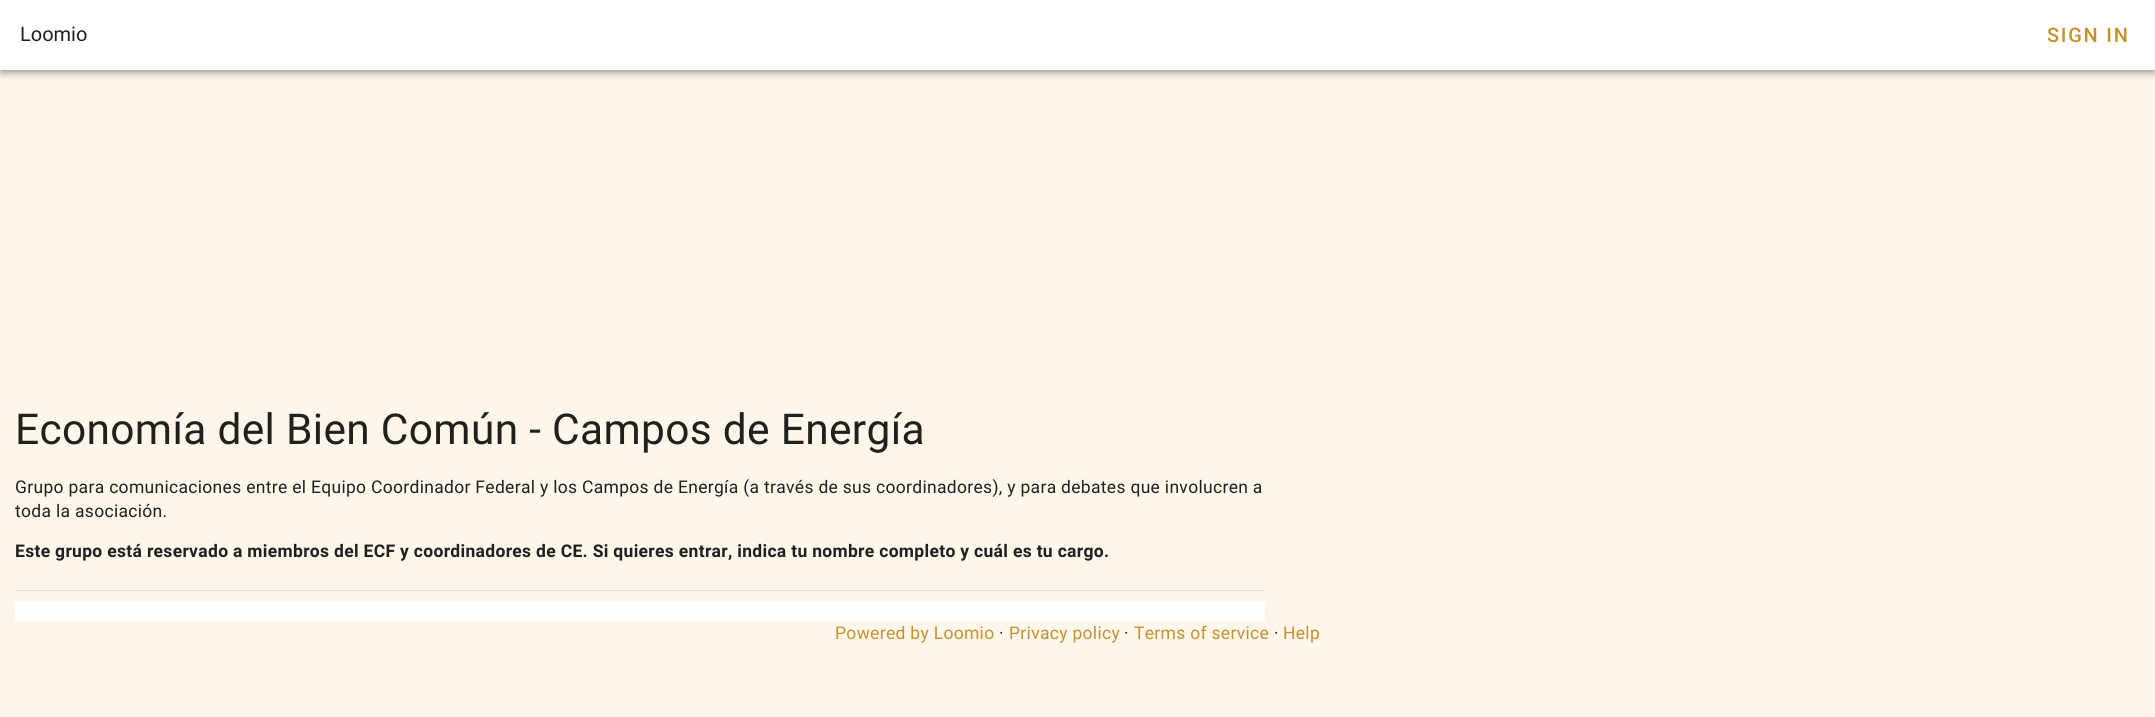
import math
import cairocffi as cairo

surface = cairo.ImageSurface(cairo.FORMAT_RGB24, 2155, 717)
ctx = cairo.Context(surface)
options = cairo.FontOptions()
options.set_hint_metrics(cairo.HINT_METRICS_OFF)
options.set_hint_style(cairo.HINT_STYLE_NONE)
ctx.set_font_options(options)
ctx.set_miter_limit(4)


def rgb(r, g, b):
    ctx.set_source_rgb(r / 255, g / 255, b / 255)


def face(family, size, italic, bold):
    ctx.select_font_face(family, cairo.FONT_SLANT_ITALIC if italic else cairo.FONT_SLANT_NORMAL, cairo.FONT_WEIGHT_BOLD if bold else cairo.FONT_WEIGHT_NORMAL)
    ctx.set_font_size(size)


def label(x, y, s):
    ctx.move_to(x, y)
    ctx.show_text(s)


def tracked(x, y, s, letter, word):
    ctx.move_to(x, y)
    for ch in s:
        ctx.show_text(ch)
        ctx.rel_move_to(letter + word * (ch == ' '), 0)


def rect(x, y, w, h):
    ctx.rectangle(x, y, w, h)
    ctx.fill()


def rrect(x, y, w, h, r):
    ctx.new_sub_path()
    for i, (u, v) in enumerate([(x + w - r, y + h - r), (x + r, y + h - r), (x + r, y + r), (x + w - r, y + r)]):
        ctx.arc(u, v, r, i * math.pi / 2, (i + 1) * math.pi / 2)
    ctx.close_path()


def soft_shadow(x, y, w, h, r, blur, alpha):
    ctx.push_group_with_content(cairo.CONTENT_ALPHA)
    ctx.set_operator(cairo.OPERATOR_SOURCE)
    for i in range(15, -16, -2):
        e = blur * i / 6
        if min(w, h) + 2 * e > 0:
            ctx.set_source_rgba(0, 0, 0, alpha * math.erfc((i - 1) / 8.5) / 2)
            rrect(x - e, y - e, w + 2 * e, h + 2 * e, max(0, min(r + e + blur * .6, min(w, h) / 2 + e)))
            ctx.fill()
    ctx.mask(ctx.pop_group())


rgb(252, 246, 235)
ctx.paint()
rgb(0, 0, 0)
soft_shadow(0, 1, 2155, 70, 0, 6, 0.12)
soft_shadow(0, 5, 2155, 70, 0, 3, 0.14)
soft_shadow(1, 4, 2153, 67, 0, 2.5, 0.2)
rgb(255, 255, 255)
rect(0, 0, 2155, 70)
face('Roboto', 20, 0, 0)
rgb(33, 32, 31)
label(20, 41, 'Loomio')
face('Roboto Medium', 20, 0, 0)
rgb(198, 144, 47)
tracked(2047, 42, 'SIGN IN', 1.75, 0)
face('Roboto', 42.5, 0, 0)
rgb(33, 32, 31)
tracked(15, 444, 'Economía del Bien Común - Campos de Energía', 0.31, 0)
face('Roboto', 17.5, 0, 0)
tracked(15, 493, 'Grupo para comunicaciones entre el Equipo Coordinador Federal y los Campos de Energía (a través de sus coordinadores), y para debates que involucren a', 0.31, 0)
tracked(15, 517, 'toda la asociación.', 0.31, 0)
face('Roboto', 17.5, 0, 1)
tracked(15, 557, 'Este grupo está reservado a miembros del ECF y coordinadores de CE. Si quieres entrar, indica tu nombre completo y cuál es tu cargo.', 0.31, 0)
rgb(226, 220, 211)
rect(15, 590, 1250, 1)
rgb(255, 255, 255)
rect(15, 601, 1250, 20)
face('Roboto', 17.5, 0, 0)
rgb(198, 144, 47)
tracked(835, 639, 'Powered by Loomio', 0.31, 0)
rgb(33, 32, 31)
tracked(999, 639, '·', 0.31, 0)
rgb(198, 144, 47)
tracked(1009, 639, 'Privacy policy', 0.31, 0)
rgb(33, 32, 31)
tracked(1124, 639, '·', 0.31, 0)
rgb(198, 144, 47)
tracked(1134, 639, 'Terms of service', 0.31, 0)
rgb(33, 32, 31)
tracked(1274, 639, '·', 0.31, 0)
rgb(198, 144, 47)
tracked(1283, 639, 'Help', 0.31, 0)
surface.write_to_png('render.png')
